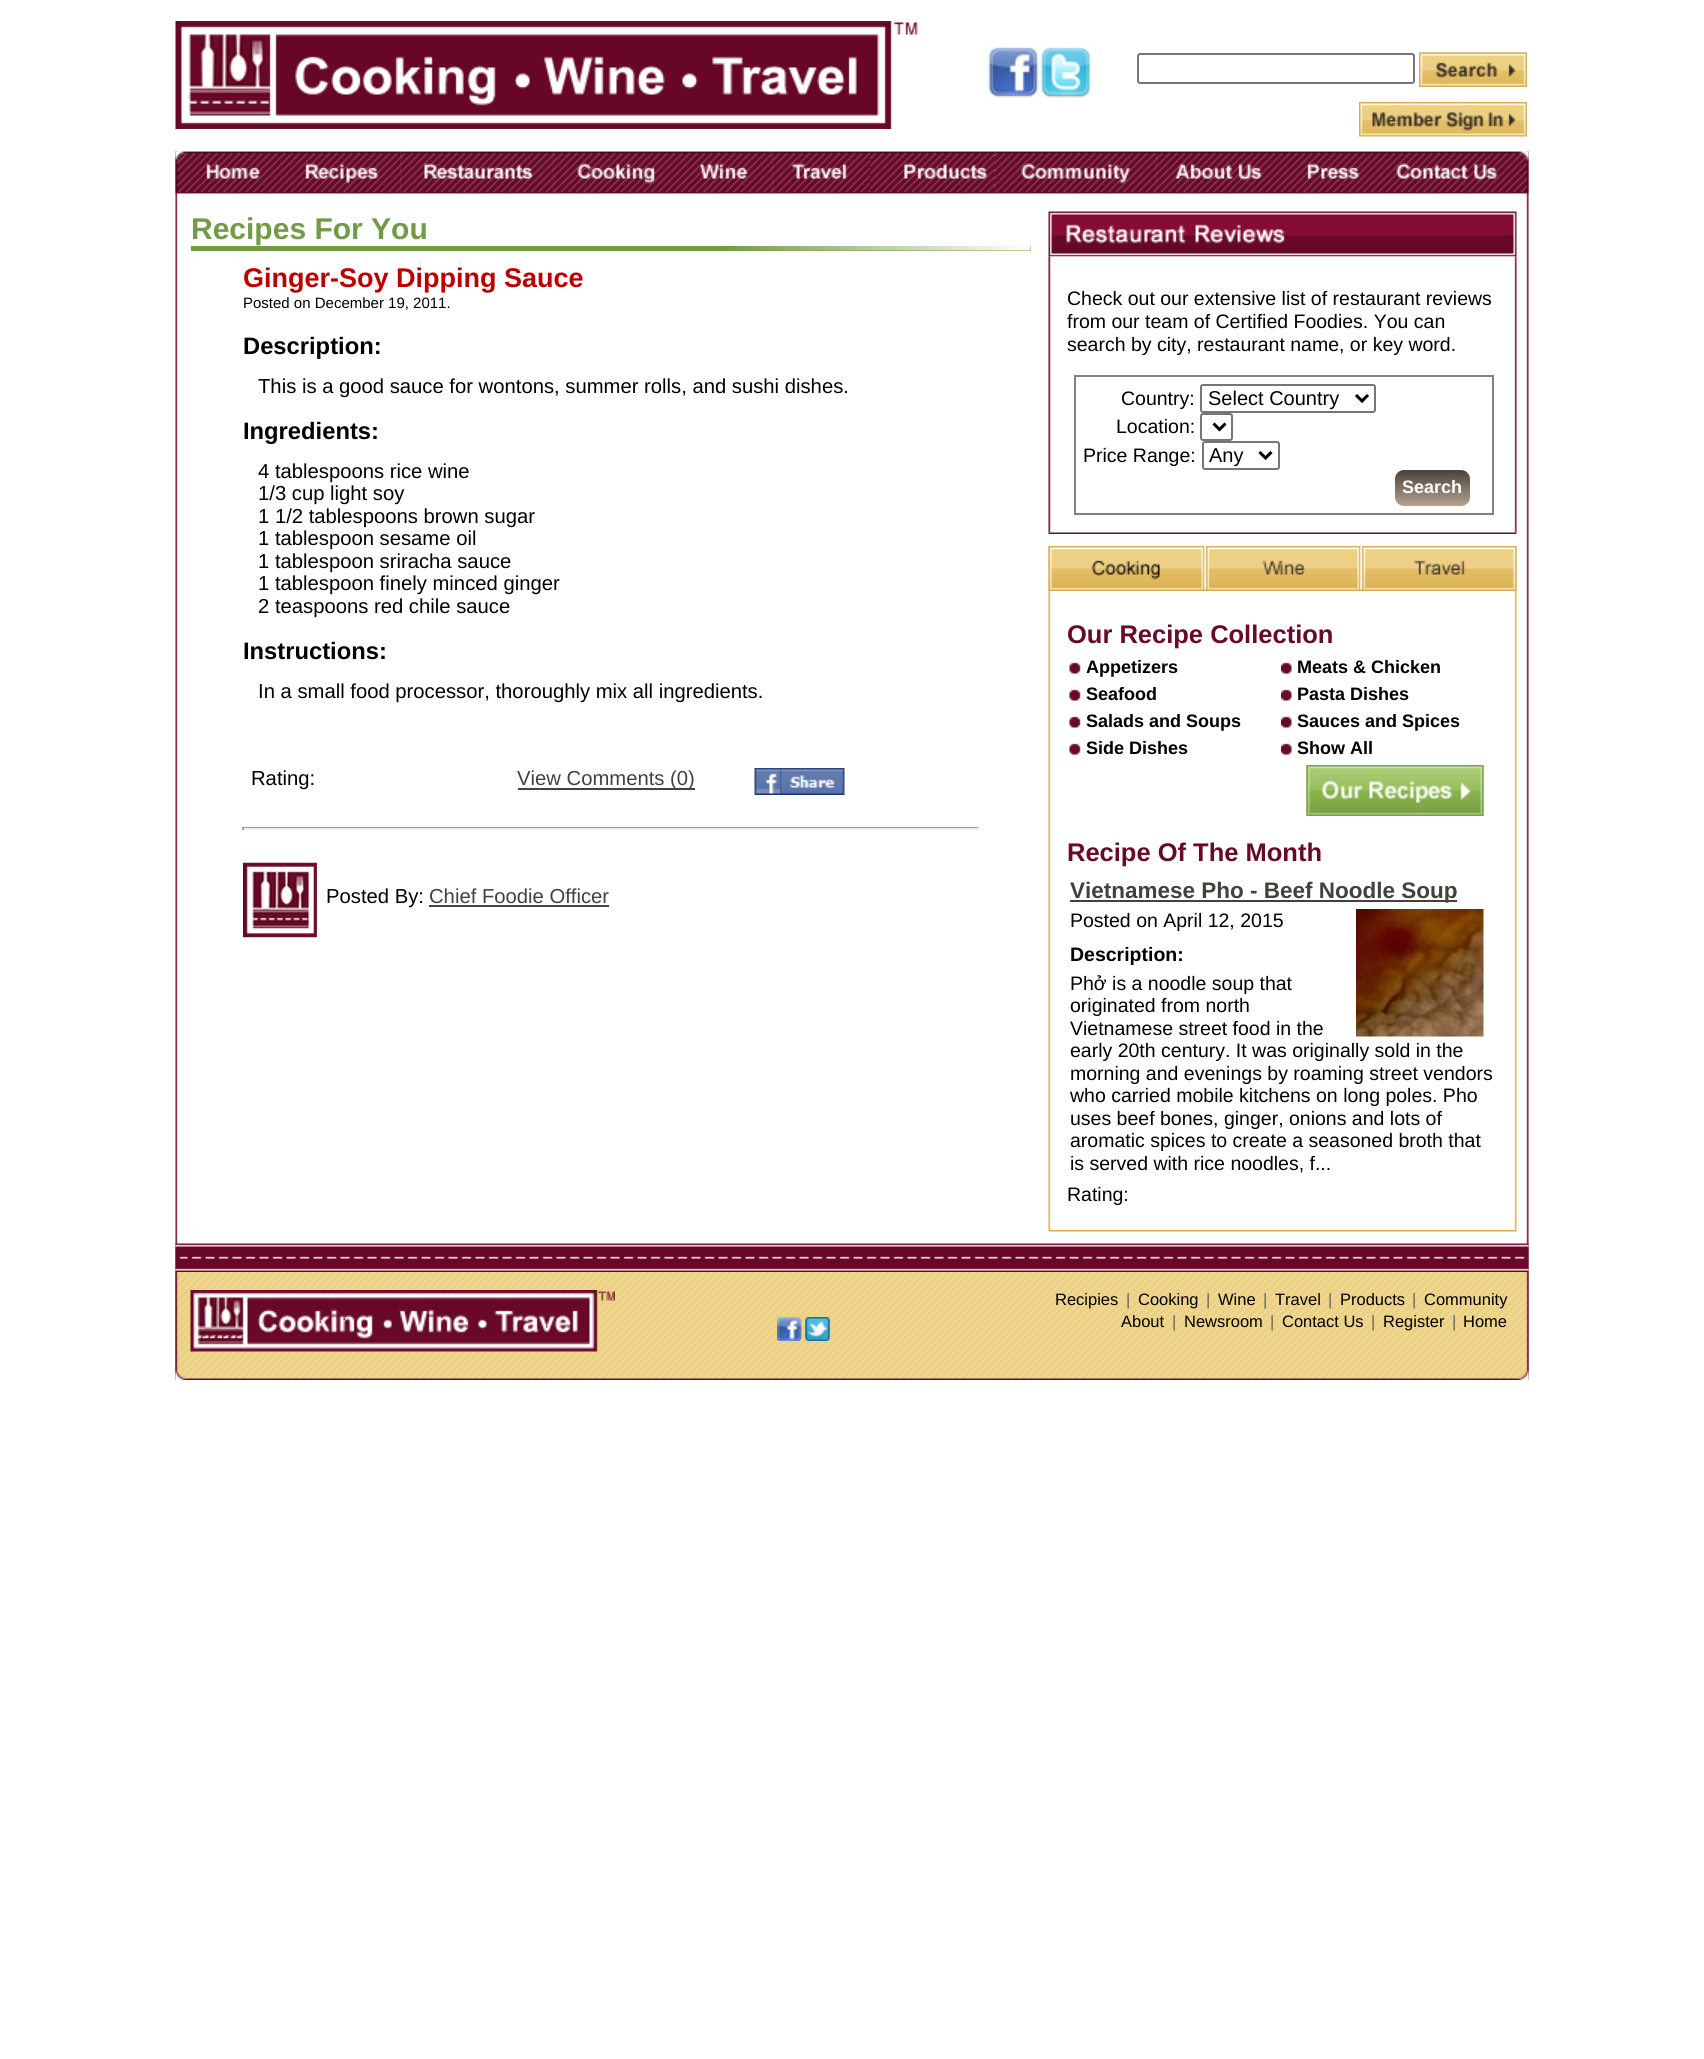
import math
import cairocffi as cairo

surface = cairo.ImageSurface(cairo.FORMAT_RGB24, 1704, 2059)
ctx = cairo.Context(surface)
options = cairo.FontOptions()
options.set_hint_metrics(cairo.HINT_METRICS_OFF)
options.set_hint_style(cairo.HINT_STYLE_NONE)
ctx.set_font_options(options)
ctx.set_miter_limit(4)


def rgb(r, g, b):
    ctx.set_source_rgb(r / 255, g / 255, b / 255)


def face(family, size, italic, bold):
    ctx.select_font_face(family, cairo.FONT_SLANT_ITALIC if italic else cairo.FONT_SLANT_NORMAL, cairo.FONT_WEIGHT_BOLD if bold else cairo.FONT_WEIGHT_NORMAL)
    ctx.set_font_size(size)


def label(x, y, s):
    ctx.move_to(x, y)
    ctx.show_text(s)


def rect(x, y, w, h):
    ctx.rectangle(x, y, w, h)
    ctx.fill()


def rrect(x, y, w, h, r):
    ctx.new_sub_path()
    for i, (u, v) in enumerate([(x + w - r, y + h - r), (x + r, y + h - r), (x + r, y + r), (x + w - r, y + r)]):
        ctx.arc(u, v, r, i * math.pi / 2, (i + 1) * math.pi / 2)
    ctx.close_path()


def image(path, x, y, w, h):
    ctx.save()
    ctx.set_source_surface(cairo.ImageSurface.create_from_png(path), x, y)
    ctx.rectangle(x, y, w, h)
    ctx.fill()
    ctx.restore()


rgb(255, 255, 255)
ctx.paint()
image('image0.png', 175, 21, 744, 108)
image('image1.png', 987, 46, 52, 53)
image('image2.png', 1039, 46, 53, 53)
rrect(1138, 54, 276, 29, 2)
rgb(118, 118, 118)
ctx.stroke()
image('image3.png', 1419, 52, 108, 35)
image('image4.png', 1419, 52, 108, 1)
image('image5.png', 1359, 102, 168, 35)
image('image6.png', 175, 151, 1354, 1229)
image('image7.png', 175, 151, 113, 43)
image('image8.png', 175, 151, 113, 43)
image('image9.png', 288, 151, 113, 43)
image('image11.png', 400, 151, 154, 43)
image('image10.png', 288, 151, 113, 43)
image('image13.png', 553, 151, 128, 43)
image('image12.png', 400, 151, 154, 43)
image('image14.png', 553, 151, 128, 43)
image('image15.png', 681, 151, 92, 43)
image('image17.png', 772, 151, 98, 43)
image('image16.png', 681, 151, 92, 43)
image('image18.png', 772, 151, 98, 43)
image('image19.png', 870, 151, 125, 43)
image('image21.png', 994, 151, 163, 43)
image('image20.png', 870, 151, 125, 43)
image('image23.png', 1156, 151, 128, 43)
image('image22.png', 994, 151, 163, 43)
image('image24.png', 1156, 151, 128, 43)
image('image25.png', 1284, 151, 102, 43)
image('image26.png', 1284, 151, 102, 43)
image('image27.png', 1386, 151, 143, 43)
image('image28.png', 1386, 151, 143, 43)
face('Liberation Sans', 30, 0, 1)
rgb(113, 155, 70)
label(191, 239, 'Recipes For You')
rect(191, 246, 840, 5)
image('image29.png', 730, 246, 301, 5)
face('Liberation Sans', 27, 0, 1)
rgb(187, 0, 0)
label(243, 287, 'Ginger-Soy Dipping Sauce')
face('Liberation Sans', 15, 0, 0)
rgb(0, 0, 0)
label(243, 308, 'Posted on December 19, 2011.')
face('Liberation Sans', 23.75, 0, 1)
label(243, 354, 'Description:')
face('Liberation Sans', 20.25, 0, 0)
label(258, 393, 'This is a good sauce for wontons, summer rolls, and sushi dishes.')
face('Liberation Sans', 23.75, 0, 1)
label(243, 439, 'Ingredients:')
face('Liberation Sans', 20.25, 0, 0)
label(258, 478, '4 tablespoons rice wine')
label(258, 500, '1/3 cup light soy')
label(258, 523, '1 1/2 tablespoons brown sugar')
label(258, 545, '1 tablespoon sesame oil')
label(258, 568, '1 tablespoon sriracha sauce')
label(258, 590, '1 tablespoon finely minced ginger')
label(258, 613, '2 teaspoons red chile sauce')
face('Liberation Sans', 23.75, 0, 1)
label(243, 659, 'Instructions:')
face('Liberation Sans', 20.25, 0, 0)
label(258, 698, 'In a small food processor, thoroughly mix all ingredients.')
label(251, 785, 'Rating:')
rgb(66, 65, 60)
rect(518, 788, 177, 2)
label(517, 785, 'View Comments (0)')
image('image30.png', 754, 768, 91, 27)
rgb(159, 159, 159)
rect(242, 827, 738, 1)
rgb(238, 238, 238)
rect(978, 827, 2, 3)
rect(242, 828, 738, 2)
rgb(159, 159, 159)
rect(242, 827, 2, 3)
image('image31.png', 243, 862, 75, 76)
rgb(0, 0, 0)
label(326, 903, 'Posted By:')
rgb(66, 65, 60)
label(429, 903, 'Chief Foodie Officer')
rect(429, 905, 180, 2)
image('image32.png', 1048, 211, 469, 46)
image('image33.png', 1048, 256, 469, 277)
face('Liberation Sans', 19.5, 0, 0)
rgb(0, 0, 0)
label(1067, 305, 'Check out our extensive list of restaurant reviews')
label(1067, 328, 'from our team of Certified Foodies. You can')
label(1067, 351, 'search by city, restaurant name, or key word.')
ctx.rectangle(1075, 376, 418, 138)
rgb(128, 128, 128)
ctx.stroke()
rgb(0, 0, 0)
label(1121, 405, 'Country:')
rrect(1201, 385, 174, 27, 2)
rgb(118, 118, 118)
ctx.stroke()
ctx.new_path()
ctx.move_to(1356, 395)
ctx.line_to(1362, 401)
ctx.line_to(1368, 395)
rgb(0, 0, 0)
ctx.set_line_width(3)
ctx.stroke()
face('Liberation Sans', 20, 0, 0)
label(1208, 405, 'Select Country')
face('Liberation Sans', 19.5, 0, 0)
label(1116, 433, 'Location:')
rrect(1201, 414, 31, 26, 2)
rgb(118, 118, 118)
ctx.set_line_width(2)
ctx.stroke()
ctx.new_path()
ctx.move_to(1213.5, 423.5)
ctx.line_to(1219.5, 429.5)
ctx.line_to(1225.5, 423.5)
rgb(0, 0, 0)
ctx.set_line_width(3)
ctx.stroke()
label(1083, 462, 'Price Range:')
rrect(1203, 442, 76, 27, 2)
rgb(118, 118, 118)
ctx.set_line_width(2)
ctx.stroke()
ctx.new_path()
ctx.move_to(1259.5, 452)
ctx.line_to(1265.5, 458)
ctx.line_to(1271.5, 452)
rgb(0, 0, 0)
ctx.set_line_width(3)
ctx.stroke()
face('Liberation Sans', 20, 0, 0)
label(1209, 462, 'Any')
gradient = cairo.LinearGradient(1395, 470, 1395, 506)
gradient.add_color_stop_rgba(0, 0.29, 0.259, 0.231, 1)
gradient.add_color_stop_rgba(1, 0.71, 0.635, 0.569, 1)
ctx.set_source(gradient)
rrect(1395, 470, 75, 36, 9)
ctx.fill()
face('Liberation Sans', 18, 0, 1)
rgb(255, 255, 255)
label(1402, 493, 'Search')
image('image34.png', 1048, 532, 469, 2)
image('image35.png', 1048, 546, 157, 45)
image('image37.png', 1204, 546, 157, 45)
image('image36.png', 1048, 546, 157, 45)
image('image39.png', 1360, 546, 157, 45)
image('image38.png', 1204, 546, 157, 45)
image('image40.png', 1360, 546, 157, 45)
image('image41.png', 1048, 591, 469, 639)
face('Liberation Sans', 25.5, 0, 1)
rgb(104, 9, 42)
label(1067, 643, 'Our Recipe Collection')
image('image42.png', 1069, 662, 12, 12)
face('Liberation Sans', 18, 0, 1)
rgb(0, 0, 0)
label(1086, 673, 'Appetizers')
image('image43.png', 1281, 662, 11, 12)
label(1297, 673, 'Meats & Chicken')
image('image42.png', 1069, 689, 12, 12)
label(1086, 700, 'Seafood')
image('image43.png', 1281, 689, 11, 12)
label(1297, 700, 'Pasta Dishes')
image('image42.png', 1069, 716, 12, 12)
label(1086, 727, 'Salads and Soups')
image('image43.png', 1281, 716, 11, 12)
label(1297, 727, 'Sauces and Spices')
image('image42.png', 1069, 743, 12, 12)
label(1086, 754, 'Side Dishes')
image('image43.png', 1281, 743, 11, 12)
label(1297, 754, 'Show All')
image('image44.png', 1306, 765, 178, 51)
image('image45.png', 1306, 765, 178, 51)
face('Liberation Sans', 25.5, 0, 1)
rgb(104, 9, 42)
label(1067, 861, 'Recipe Of The Month')
rgb(66, 65, 60)
rect(1070, 900, 387, 2)
face('Liberation Sans', 22.5, 0, 1)
label(1070, 898, 'Vietnamese Pho - Beef Noodle Soup')
face('Liberation Sans', 19.5, 0, 0)
rgb(0, 0, 0)
label(1070, 927, 'Posted on April 12, 2015')
image('image46.png', 1356, 909, 128, 128)
face('Liberation Sans', 19.5, 0, 1)
label(1070, 961, 'Description:')
face('Liberation Sans', 19.5, 0, 0)
label(1070, 990, 'Phở is a noodle soup that')
label(1070, 1012, 'originated from north')
label(1070, 1035, 'Vietnamese street food in the')
label(1070, 1057, 'early 20th century. It was originally sold in the')
label(1070, 1080, 'morning and evenings by roaming street vendors')
label(1070, 1102, 'who carried mobile kitchens on long poles. Pho')
label(1070, 1125, 'uses beef bones, ginger, onions and lots of')
label(1070, 1147, 'aromatic spices to create a seasoned broth that')
label(1070, 1170, 'is served with rice noodles, f...')
label(1067, 1201, 'Rating:')
image('image47.png', 1048, 1230, 469, 2)
image('image48.png', 175, 1243, 1354, 29)
image('image49.png', 175, 1272, 1354, 108)
image('image50.png', 190, 1290, 425, 62)
image('image51.png', 777, 1317, 25, 24)
image('image52.png', 777, 1317, 25, 24)
image('image53.png', 805, 1317, 25, 24)
image('image54.png', 805, 1317, 25, 24)
face('Liberation Sans', 16.5, 0, 0)
label(1055, 1305, 'Recipies')
rgb(102, 102, 102)
label(1126, 1305, '|')
rgb(0, 0, 0)
label(1138, 1305, 'Cooking')
rgb(102, 102, 102)
label(1206, 1305, '|')
rgb(0, 0, 0)
label(1218, 1305, 'Wine')
rgb(102, 102, 102)
label(1263, 1305, '|')
rgb(0, 0, 0)
label(1275, 1305, 'Travel')
rgb(102, 102, 102)
label(1328, 1305, '|')
rgb(0, 0, 0)
label(1340, 1305, 'Products')
rgb(102, 102, 102)
label(1412, 1305, '|')
rgb(0, 0, 0)
label(1424, 1305, 'Community')
label(1121, 1327, 'About')
rgb(102, 102, 102)
label(1172, 1327, '|')
rgb(0, 0, 0)
label(1184, 1327, 'Newsroom')
rgb(102, 102, 102)
label(1270, 1327, '|')
rgb(0, 0, 0)
label(1282, 1327, 'Contact Us')
rgb(102, 102, 102)
label(1371, 1327, '|')
rgb(0, 0, 0)
label(1383, 1327, 'Register')
rgb(102, 102, 102)
label(1452, 1327, '|')
rgb(0, 0, 0)
label(1463, 1327, 'Home')
surface.write_to_png('render.png')
